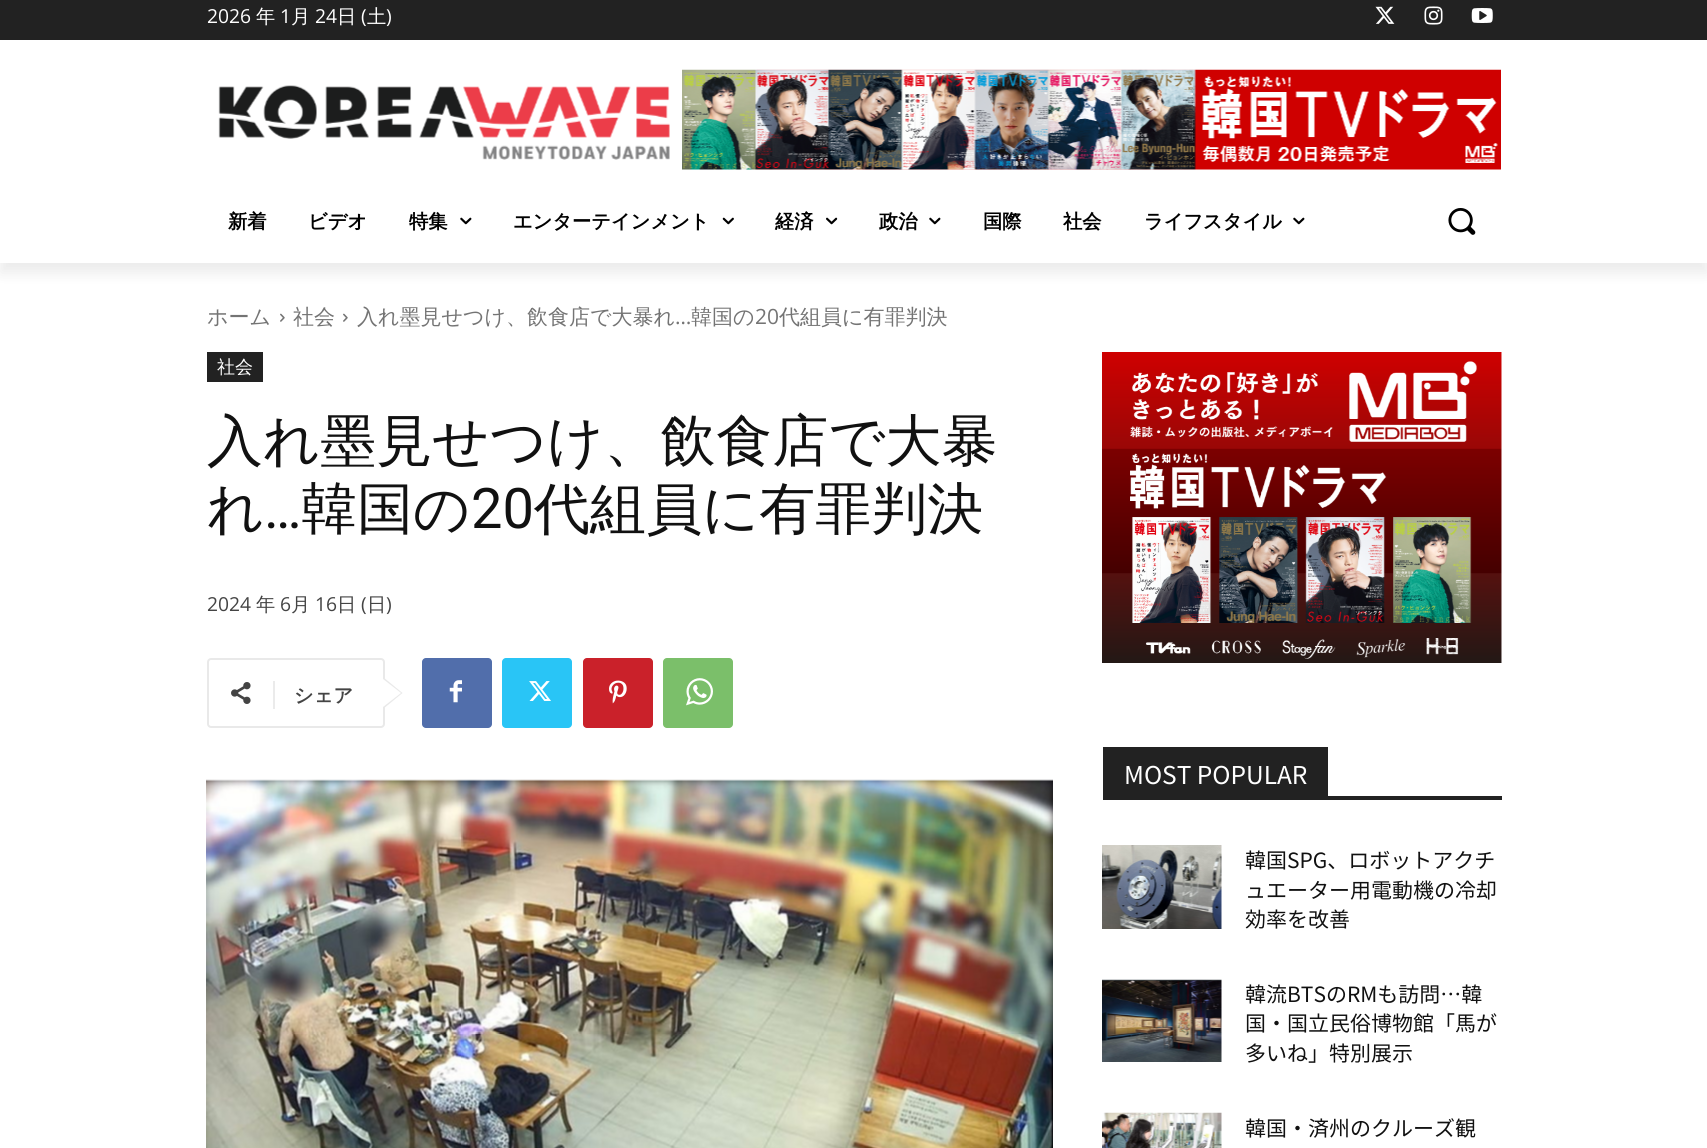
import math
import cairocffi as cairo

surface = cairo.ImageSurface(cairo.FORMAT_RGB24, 1707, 1148)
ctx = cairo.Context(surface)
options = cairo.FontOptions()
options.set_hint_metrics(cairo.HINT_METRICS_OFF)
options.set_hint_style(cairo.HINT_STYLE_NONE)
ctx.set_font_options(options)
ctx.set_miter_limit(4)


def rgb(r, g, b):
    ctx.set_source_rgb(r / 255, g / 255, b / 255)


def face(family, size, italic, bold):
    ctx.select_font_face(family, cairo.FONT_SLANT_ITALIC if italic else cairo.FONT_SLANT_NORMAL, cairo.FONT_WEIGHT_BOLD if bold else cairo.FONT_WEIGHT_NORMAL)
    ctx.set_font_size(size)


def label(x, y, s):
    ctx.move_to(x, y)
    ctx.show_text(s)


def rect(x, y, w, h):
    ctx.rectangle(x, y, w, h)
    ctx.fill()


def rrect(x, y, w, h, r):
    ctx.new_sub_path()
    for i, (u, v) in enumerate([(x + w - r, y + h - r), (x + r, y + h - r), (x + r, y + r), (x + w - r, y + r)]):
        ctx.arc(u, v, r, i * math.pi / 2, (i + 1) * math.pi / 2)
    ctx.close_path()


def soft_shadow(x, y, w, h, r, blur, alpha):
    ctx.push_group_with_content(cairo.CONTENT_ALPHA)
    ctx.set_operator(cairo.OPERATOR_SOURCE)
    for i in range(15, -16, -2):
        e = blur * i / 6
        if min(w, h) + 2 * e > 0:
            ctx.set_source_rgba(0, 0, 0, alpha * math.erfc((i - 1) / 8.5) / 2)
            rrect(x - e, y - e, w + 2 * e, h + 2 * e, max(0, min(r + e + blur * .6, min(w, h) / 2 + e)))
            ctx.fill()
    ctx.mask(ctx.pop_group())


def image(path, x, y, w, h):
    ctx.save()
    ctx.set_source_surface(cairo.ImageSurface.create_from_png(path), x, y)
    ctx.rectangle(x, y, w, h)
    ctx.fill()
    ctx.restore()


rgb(255, 255, 255)
ctx.paint()
rgb(34, 34, 34)
rect(0, 0, 1707, 40)
image('image0.png', 1375, 6, 20, 18)
image('image1.png', 1424, 6, 19, 19)
image('image2.png', 1471, 8, 22, 15)
image('image3.png', 218, 85, 452, 75)
image('image4.png', 682, 69, 819, 101)
ctx.save()
ctx.set_fill_rule(cairo.FILL_RULE_EVEN_ODD)
ctx.new_path()
ctx.move_to(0, 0)
ctx.line_to(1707, 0)
ctx.line_to(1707, 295)
ctx.line_to(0, 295)
ctx.close_path()
ctx.move_to(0, -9)
ctx.line_to(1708, -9)
ctx.line_to(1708, 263)
ctx.line_to(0, 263)
ctx.close_path()
ctx.clip()
rgb(0, 0, 0)
soft_shadow(0, 2, 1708, 271, 0, 7, 0.08)
ctx.restore()
face('Open Sans', 19.25, 0, 0)
rgb(255, 255, 255)
label(207, 23, '2026')
face('WenQuanYi Zen Hei Medium', 19.25, 0, 0)
label(256, 23, '年')
face('Open Sans', 19.25, 0, 0)
label(280, 23, '1')
face('WenQuanYi Zen Hei Medium', 19.25, 0, 0)
label(291, 23, '月')
face('Open Sans', 19.25, 0, 0)
label(315, 23, '24')
face('WenQuanYi Zen Hei Medium', 19.25, 0, 0)
label(337, 23, '日')
face('Open Sans', 19.25, 0, 0)
label(361, 23, '(')
face('WenQuanYi Zen Hei Medium', 19.25, 0, 0)
label(367, 23, '土')
face('Open Sans', 19.25, 0, 0)
label(386, 23, ')')
face('WenQuanYi Zen Hei', 19.25, 0, 1)
rgb(0, 0, 0)
label(228, 228, '新着')
label(308, 228, 'ビデオ')
label(409, 228, '特集')
image('image5.png', 460, 217, 12, 8)
label(513, 228, 'エンターテインメント')
image('image6.png', 722, 217, 12, 8)
label(775, 228, '経済')
image('image7.png', 826, 217, 12, 8)
label(879, 228, '政治')
image('image5.png', 929, 217, 12, 8)
label(983, 228, '国際')
label(1063, 228, '社会')
label(1144, 228, 'ライフスタイル')
image('image5.png', 1293, 217, 12, 8)
image('image8.png', 1448, 208, 28, 27)
face('WenQuanYi Zen Hei Medium', 21, 0, 0)
rgb(116, 116, 116)
label(207, 324, 'ホーム')
image('image9.png', 280, 313, 5, 9)
label(293, 324, '社会')
image('image9.png', 343, 313, 5, 9)
label(357, 324, '入れ墨見せつけ、飲食店で大暴れ')
label(691, 324, '韓国の')
face('Open Sans', 21, 0, 0)
label(755, 324, '20')
face('WenQuanYi Zen Hei Medium', 21, 0, 0)
label(779, 324, '代組員に有罪判決')
face('Open Sans', 21, 0, 0)
label(675, 324, '…')
rgb(34, 34, 34)
rect(207, 352, 56, 30)
face('WenQuanYi Zen Hei Medium', 18, 0, 0)
rgb(255, 255, 255)
label(217, 373, '社会')
face('WenQuanYi Zen Hei Medium', 56, 0, 0)
rgb(17, 17, 17)
label(207, 460, '入れ墨見せつけ、飲食店で大暴')
label(207, 528, 'れ')
face('Roboto', 56, 0, 0)
label(264, 528, '…')
face('WenQuanYi Zen Hei Medium', 56, 0, 0)
label(301, 528, '韓国の')
face('Roboto', 56, 0, 0)
label(471, 528, '20')
face('WenQuanYi Zen Hei Medium', 56, 0, 0)
label(534, 528, '代組員に有罪判決')
face('Open Sans', 19.25, 0, 0)
rgb(68, 68, 68)
label(207, 611, '2024')
face('WenQuanYi Zen Hei Medium', 19.25, 0, 0)
label(256, 611, '年')
face('Open Sans', 19.25, 0, 0)
label(280, 611, '6')
face('WenQuanYi Zen Hei Medium', 19.25, 0, 0)
label(291, 611, '月')
face('Open Sans', 19.25, 0, 0)
label(315, 611, '16')
face('WenQuanYi Zen Hei Medium', 19.25, 0, 0)
label(337, 611, '日')
face('Open Sans', 19.25, 0, 0)
label(361, 611, '(')
face('WenQuanYi Zen Hei Medium', 19.25, 0, 0)
label(367, 611, '日')
face('Open Sans', 19.25, 0, 0)
label(386, 611, ')')
rrect(208, 659, 176, 68, 3)
rgb(233, 233, 233)
ctx.stroke()
ctx.new_path()
ctx.move_to(383, 709)
ctx.line_to(383, 677)
ctx.line_to(402.5, 693)
ctx.close_path()
ctx.fill()
image('image10.png', 231, 682, 20, 22)
rgb(235, 235, 235)
rect(273, 681, 2, 28)
face('WenQuanYi Zen Hei', 19.25, 0, 1)
rgb(68, 68, 68)
label(294, 702, 'シェア')
rgb(255, 255, 255)
ctx.new_path()
ctx.move_to(383, 707)
ctx.line_to(383, 679)
ctx.line_to(401, 693)
ctx.close_path()
ctx.fill()
rgb(81, 110, 171)
rrect(422, 658, 70, 70, 4)
ctx.fill()
image('image11.png', 449, 680, 13, 23)
rgb(41, 197, 246)
rrect(502, 658, 70, 70, 4)
ctx.fill()
image('image12.png', 529, 681, 22, 20)
rgb(202, 33, 42)
rrect(583, 658, 70, 70, 4)
ctx.fill()
image('image13.png', 609, 680, 18, 24)
rgb(123, 191, 106)
rrect(663, 658, 70, 70, 4)
ctx.fill()
image('image14.png', 686, 678, 27, 28)
image('image15.png', 206, 779, 847, 369)
image('image16.png', 1102, 352, 400, 311)
rgb(34, 34, 34)
rect(1103, 796, 399, 4)
rect(1103, 747, 225, 49)
face('Noto Sans JP', 24.5, 0, 0)
rgb(255, 255, 255)
label(1124, 784, 'MOST POPULAR')
image('image17.png', 1102, 845, 120, 84)
face('Noto Sans JP', 21, 0, 0)
rgb(17, 17, 17)
label(1245, 868, '韓国SPG、ロボットアクチ')
label(1245, 898, 'ュエーター用電動機の冷却')
label(1245, 927, '効率を改善')
image('image18.png', 1102, 979, 120, 83)
label(1245, 1002, '韓流BTSのRMも訪問…韓')
label(1245, 1031, '国・国立民俗博物館「馬が')
label(1245, 1061, '多いね」特別展示')
image('image19.png', 1102, 1112, 120, 36)
label(1245, 1136, '韓国・済州のクルーズ観')
surface.write_to_png('render.png')
